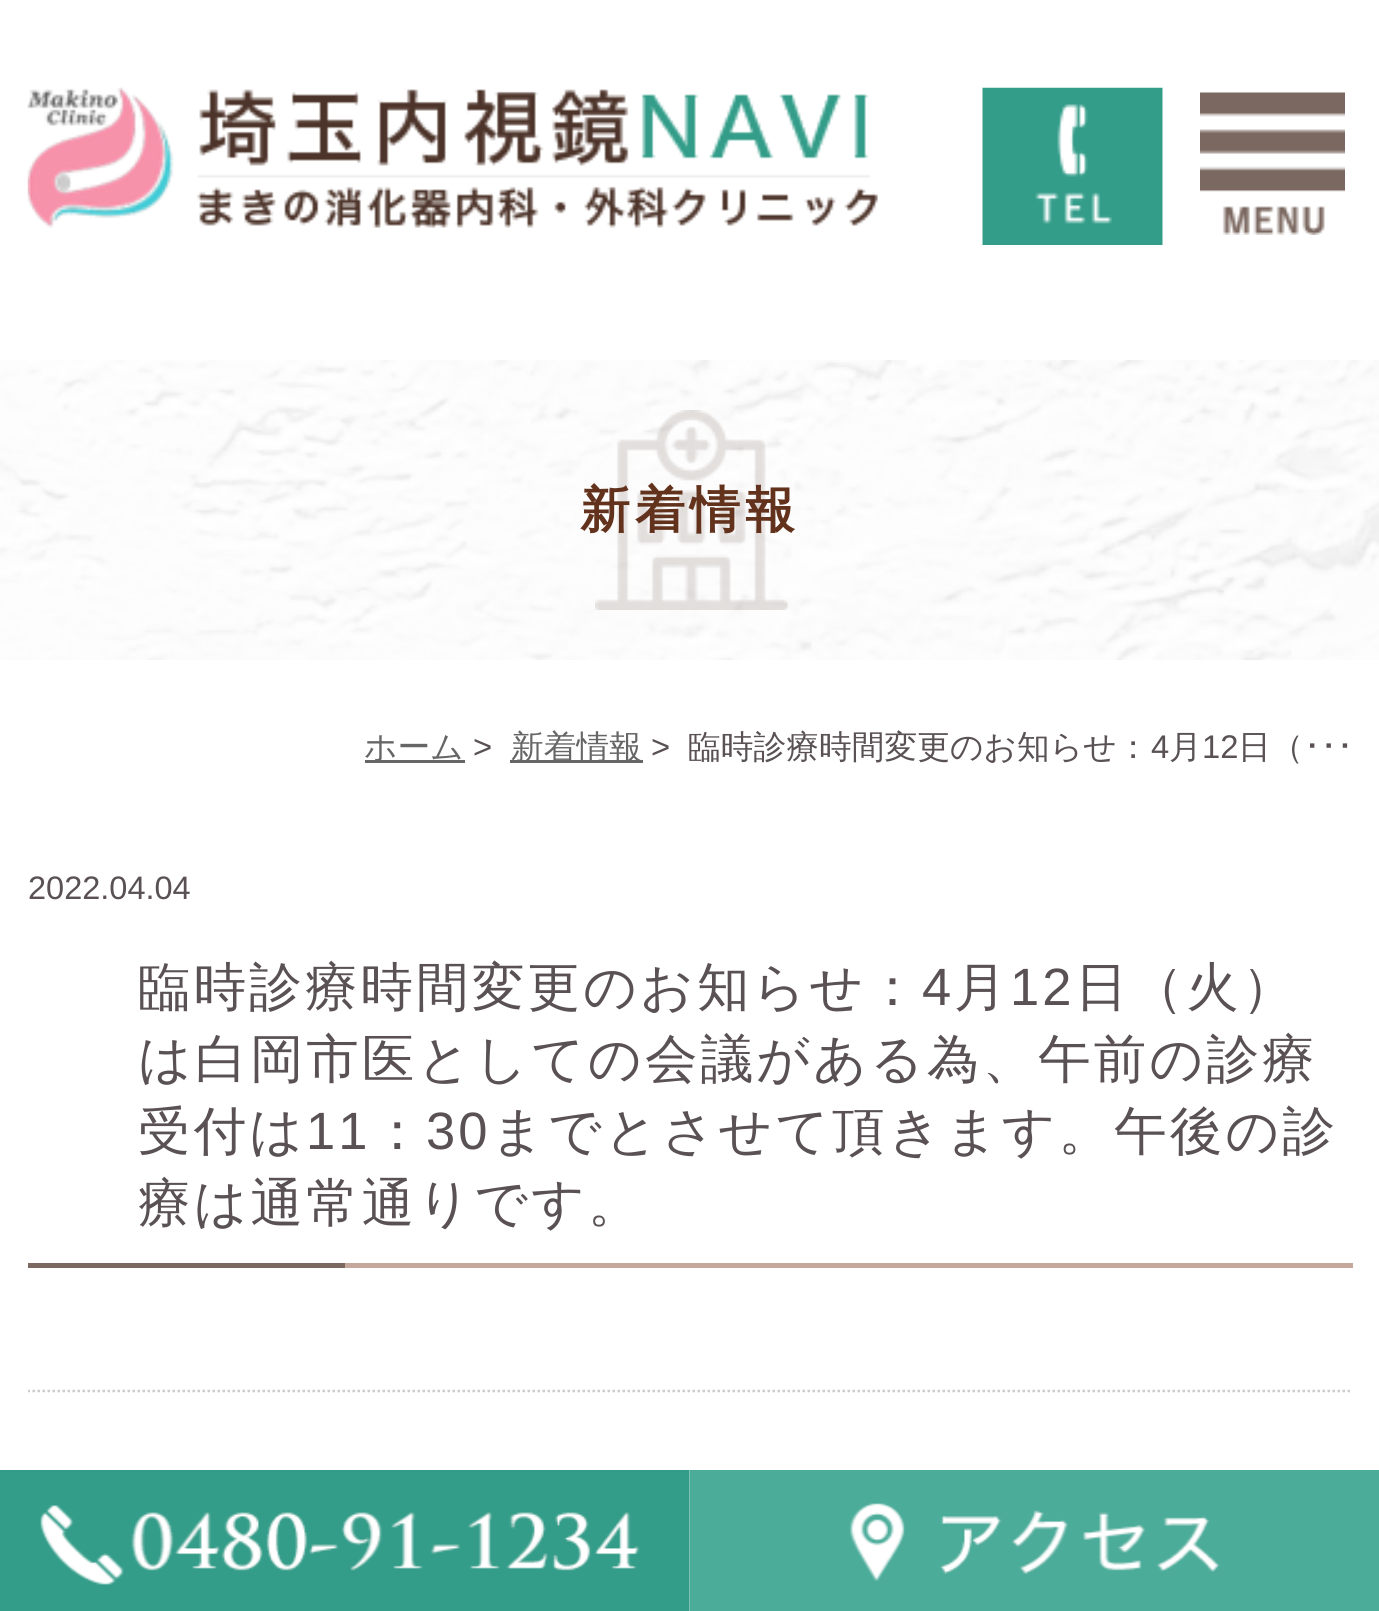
import math
import cairocffi as cairo

surface = cairo.ImageSurface(cairo.FORMAT_RGB24, 1379, 1611)
ctx = cairo.Context(surface)
options = cairo.FontOptions()
options.set_hint_metrics(cairo.HINT_METRICS_OFF)
options.set_hint_style(cairo.HINT_STYLE_NONE)
ctx.set_font_options(options)
ctx.set_miter_limit(4)


def rgb(r, g, b):
    ctx.set_source_rgb(r / 255, g / 255, b / 255)


def face(family, size, italic, bold):
    ctx.select_font_face(family, cairo.FONT_SLANT_ITALIC if italic else cairo.FONT_SLANT_NORMAL, cairo.FONT_WEIGHT_BOLD if bold else cairo.FONT_WEIGHT_NORMAL)
    ctx.set_font_size(size)


def label(x, y, s):
    ctx.move_to(x, y)
    ctx.show_text(s)


def tracked(x, y, s, letter, word):
    ctx.move_to(x, y)
    for ch in s:
        ctx.show_text(ch)
        ctx.rel_move_to(letter + word * (ch == ' '), 0)


def rect(x, y, w, h):
    ctx.rectangle(x, y, w, h)
    ctx.fill()


def image(path, x, y, w, h):
    ctx.save()
    ctx.set_source_surface(cairo.ImageSurface.create_from_png(path), x, y)
    ctx.rectangle(x, y, w, h)
    ctx.fill()
    ctx.restore()


rgb(255, 255, 255)
ctx.paint()
image('image0.png', 27, 87, 851, 141)
image('image1.png', 982, 87, 181, 158)
image('image2.png', 1200, 92, 145, 143)
image('image3.png', 0, 360, 1379, 300)
image('image4.png', 595, 410, 193, 200)
face('WenQuanYi Zen Hei', 50, 0, 1)
rgb(99, 50, 29)
tracked(580, 527, '新着情報', 5, 0)
rgb(102, 102, 102)
rect(365, 760, 100, 3)
face('WenQuanYi Zen Hei Medium', 32.75, 0, 0)
label(364, 758, 'ホーム')
face('Liberation Sans', 32.75, 0, 0)
rgb(89, 81, 83)
label(473, 758, '>')
rgb(102, 102, 102)
rect(510, 760, 133, 3)
face('WenQuanYi Zen Hei Medium', 32.75, 0, 0)
label(511, 758, '新着情報')
face('Liberation Sans', 32.75, 0, 0)
rgb(89, 81, 83)
label(651, 758, '>')
face('WenQuanYi Zen Hei Medium', 32.75, 0, 0)
label(688, 758, '臨時診療時間変更のお知らせ：')
face('Liberation Sans', 32.75, 0, 0)
label(1151, 758, '4')
face('WenQuanYi Zen Hei Medium', 32.75, 0, 0)
label(1169, 758, '月')
face('Liberation Sans', 32.75, 0, 0)
label(1202, 758, '12')
face('WenQuanYi Zen Hei Medium', 32.75, 0, 0)
label(1238, 758, '日（')
face('IPAPGothic', 32.75, 0, 0)
label(1304, 758, '･･･')
ctx.save()
ctx.rectangle(28, 838, 1325, 635)
ctx.clip()
ctx.new_path()
ctx.move_to(27.5, 1391)
ctx.line_to(1352.5, 1391)
rgb(204, 204, 204)
ctx.set_line_width(2.5)
ctx.set_dash([2.5, 2.5])
ctx.stroke()
ctx.restore()
face('Liberation Sans', 32.5, 0, 0)
label(28, 899, '2022.04.04')
face('WenQuanYi Zen Hei Medium', 52.5, 0, 0)
tracked(138, 1005, '臨時診療時間変更のお知らせ：', 3.15, 0)
face('Liberation Sans', 52.5, 0, 0)
tracked(922, 1005, '4', 3.15, 0)
face('WenQuanYi Zen Hei Medium', 52.5, 0, 0)
tracked(954, 1005, '月', 3.15, 0)
face('Liberation Sans', 52.5, 0, 0)
tracked(1010, 1005, '12', 3.15, 0)
face('WenQuanYi Zen Hei Medium', 52.5, 0, 0)
tracked(1075, 1005, '日（火）', 3.15, 0)
tracked(138, 1077, 'は白岡市医としての会議がある為、午前の診療', 3.15, 0)
tracked(138, 1149, '受付は', 3.15, 0)
face('Liberation Sans', 52.5, 0, 0)
tracked(306, 1149, '11', 3.15, 0)
face('WenQuanYi Zen Hei Medium', 52.5, 0, 0)
tracked(371, 1149, '：', 3.15, 0)
face('Liberation Sans', 52.5, 0, 0)
tracked(426, 1149, '30', 3.15, 0)
face('WenQuanYi Zen Hei Medium', 52.5, 0, 0)
tracked(491, 1149, 'までとさせて頂きます。午後の診', 3.15, 0)
tracked(138, 1221, '療は通常通りです。', 3.15, 0)
rgb(123, 104, 96)
rect(28, 1263, 317, 5)
rgb(197, 168, 155)
rect(345, 1263, 1008, 5)
image('image5.png', 0, 1470, 690, 141)
image('image6.png', 690, 1470, 689, 141)
surface.write_to_png('render.png')
